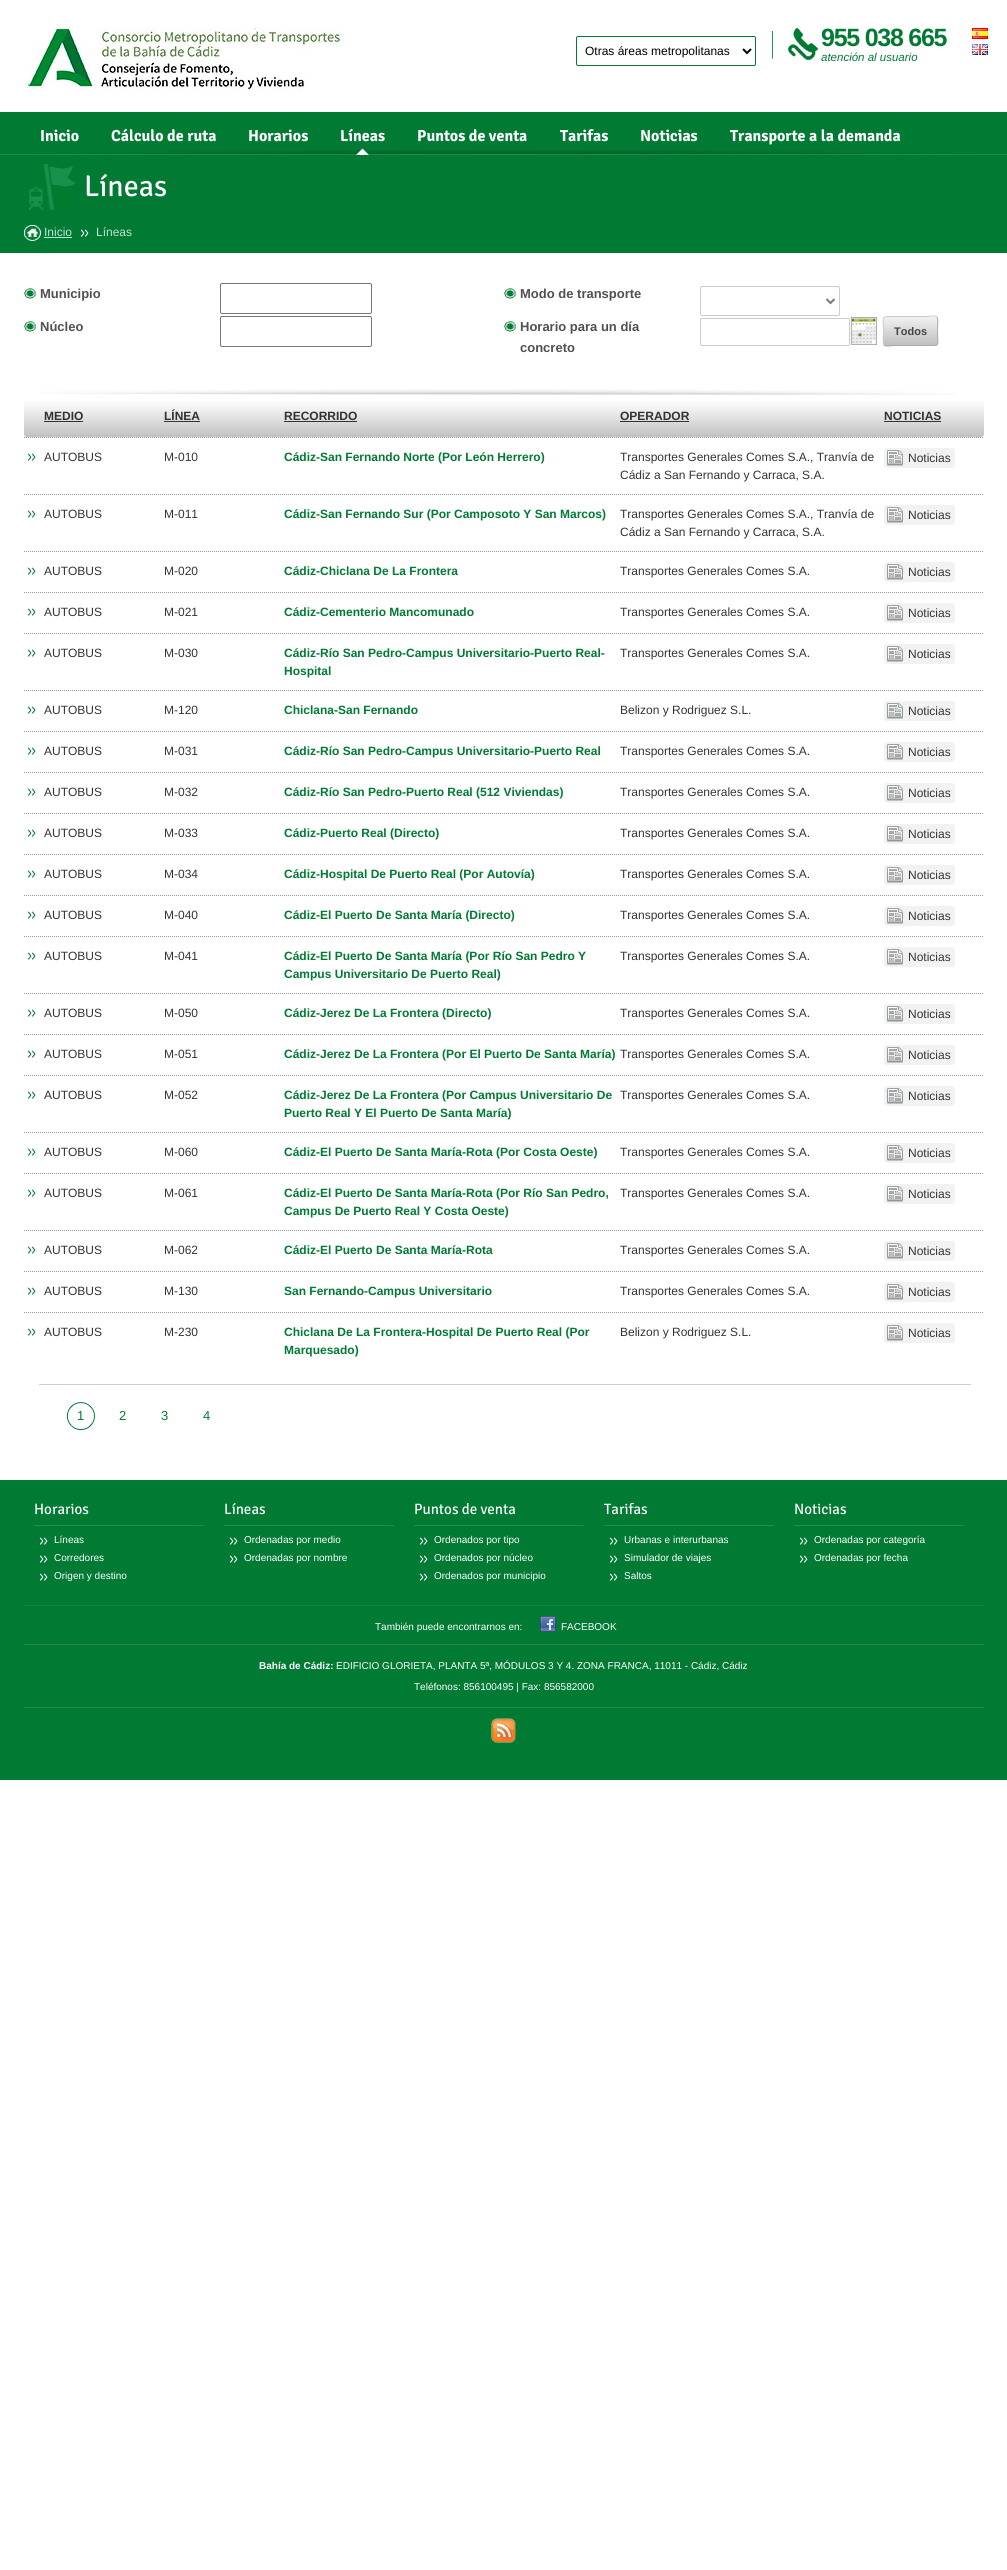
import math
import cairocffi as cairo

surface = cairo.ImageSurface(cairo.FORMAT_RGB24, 1007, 2570)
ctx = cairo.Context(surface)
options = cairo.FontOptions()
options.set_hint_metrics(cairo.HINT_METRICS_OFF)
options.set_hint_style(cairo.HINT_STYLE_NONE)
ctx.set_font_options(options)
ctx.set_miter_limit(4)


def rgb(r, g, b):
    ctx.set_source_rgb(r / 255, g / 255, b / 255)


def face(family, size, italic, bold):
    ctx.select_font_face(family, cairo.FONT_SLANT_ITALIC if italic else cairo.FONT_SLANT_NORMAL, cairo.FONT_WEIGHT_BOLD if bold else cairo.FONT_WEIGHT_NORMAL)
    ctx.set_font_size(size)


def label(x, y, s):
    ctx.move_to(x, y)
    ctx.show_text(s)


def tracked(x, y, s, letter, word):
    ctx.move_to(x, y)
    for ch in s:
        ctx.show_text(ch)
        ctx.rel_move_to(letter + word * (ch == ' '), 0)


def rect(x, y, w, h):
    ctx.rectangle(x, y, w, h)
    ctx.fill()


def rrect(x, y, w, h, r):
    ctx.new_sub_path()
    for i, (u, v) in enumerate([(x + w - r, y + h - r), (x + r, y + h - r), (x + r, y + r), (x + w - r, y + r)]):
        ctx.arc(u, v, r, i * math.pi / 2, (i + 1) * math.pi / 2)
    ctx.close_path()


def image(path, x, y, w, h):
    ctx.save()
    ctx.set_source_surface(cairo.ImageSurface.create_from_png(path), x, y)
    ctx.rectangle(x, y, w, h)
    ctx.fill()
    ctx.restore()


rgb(255, 255, 255)
ctx.paint()
image('image0.png', 28, 28, 312, 64)
rrect(576.5, 36.5, 179, 29, 1.5)
rgb(1, 122, 51)
ctx.set_line_width(1)
ctx.stroke()
ctx.new_path()
ctx.move_to(743, 49)
ctx.line_to(747, 53)
ctx.line_to(751, 49)
rgb(0, 0, 0)
ctx.set_line_width(2)
ctx.stroke()
face('Liberation Sans', 12, 0, 0)
label(585, 55, 'Otras áreas metropolitanas')
image('image1.png', 771, 28, 47, 32)
face('Liberation Sans', 25, 0, 1)
rgb(1, 122, 51)
tracked(821, 46, '955 038 665', -1.25, 0)
face('Liberation Sans', 11.5, 1, 0)
label(821, 61, 'atención al usuario')
image('image2.png', 972, 28, 16, 11)
image('image3.png', 972, 44, 16, 11)
rect(0, 112, 1007, 141)
image('image4.png', 0, 150, 1007, 5)
image('image5.png', 24, 150, 960, 5)
face('Signika Negative', 16, 0, 1)
rgb(255, 255, 255)
label(40, 141, 'Inicio')
label(111, 141, 'Cálculo de ruta')
label(248, 141, 'Horarios')
image('image6.png', 356, 148, 13, 7)
label(340, 141, 'Líneas')
label(417, 141, 'Puntos de venta')
label(560, 141, 'Tarifas')
label(640, 141, 'Noticias')
label(730, 141, 'Transporte a la demanda')
image('image7.png', 28, 164, 47, 46)
face('Signika Negative', 30, 0, 0)
label(84, 196, 'Líneas')
image('image8.png', 24, 225, 17, 16)
face('Liberation Sans', 12, 0, 0)
rgb(188, 228, 204)
label(44, 236, 'Inicio')
rect(44, 237, 28, 1)
image('image9.png', 80, 229, 9, 8)
label(96, 236, 'Líneas')
image('image10.png', 40, 389, 916, 6)
image('image11.png', 24, 288, 12, 11)
face('Liberation Sans', 13, 0, 1)
rgb(80, 80, 80)
label(40, 298, 'Municipio')
rrect(220.5, 283.5, 151, 30, 1.5)
rgb(118, 118, 118)
ctx.set_line_width(1)
ctx.stroke()
image('image11.png', 504, 288, 12, 11)
rgb(80, 80, 80)
label(520, 298, 'Modo de transporte')
rrect(700.5, 286.5, 139, 29, 1.5)
rgb(204, 204, 204)
ctx.stroke()
ctx.new_path()
ctx.move_to(826.5, 299)
ctx.line_to(830.5, 303)
ctx.line_to(834.5, 299)
rgb(119, 119, 119)
ctx.set_line_width(2)
ctx.stroke()
image('image11.png', 24, 321, 12, 11)
rgb(80, 80, 80)
label(40, 331, 'Núcleo')
rrect(220.5, 316.5, 151, 30, 1.5)
rgb(118, 118, 118)
ctx.set_line_width(1)
ctx.stroke()
image('image11.png', 504, 321, 12, 11)
rgb(80, 80, 80)
label(520, 331, 'Horario para un día')
label(520, 352, 'concreto')
rrect(700.5, 318.5, 149, 27, 1.5)
rgb(204, 204, 204)
ctx.stroke()
image('image12.png', 850, 317, 27, 28)
image('image13.png', 883, 317, 55, 29)
ctx.new_path()
ctx.move_to(937, 317)
ctx.curve_to(938.5, 319, 937.5, 328.5, 937.5, 331)
ctx.curve_to(937.5, 346.5, 941, 345.5, 927, 345.5)
ctx.line_to(894, 345.5)
ctx.curve_to(891, 345.5, 886.5, 347, 884, 345)
rgb(170, 170, 170)
ctx.stroke()
ctx.new_path()
ctx.move_to(884, 345)
ctx.curve_to(882.5, 343, 883.5, 333.5, 883.5, 331)
ctx.curve_to(883.5, 315.5, 880, 316.5, 894, 316.5)
ctx.line_to(927, 316.5)
ctx.curve_to(930, 316.5, 934.5, 315, 937, 317)
rgb(204, 204, 204)
ctx.stroke()
face('Liberation Sans', 11, 0, 1)
rgb(68, 68, 68)
label(894, 335, 'Todos')
image('image14.png', 24, 401, 960, 36)
face('Liberation Sans', 12, 0, 1)
rgb(51, 51, 51)
label(44, 420, 'MEDIO')
rect(44, 421, 39, 1)
label(164, 420, 'LÍNEA')
rect(164, 421, 36, 1)
label(284, 420, 'RECORRIDO')
rect(284, 421, 73, 1)
label(620, 420, 'OPERADOR')
rect(620, 421, 69, 1)
label(884, 420, 'NOTICIAS')
rect(884, 421, 57, 1)
image('image15.png', 27, 453, 9, 8)
ctx.new_path()
ctx.move_to(24, 437.5)
ctx.line_to(984, 437.5)
rgb(153, 153, 153)
ctx.set_dash([1, 1])
ctx.stroke()
face('Liberation Sans', 12, 0, 0)
rgb(51, 51, 51)
label(44, 461, 'AUTOBUS')
label(164, 461, 'M-010')
face('Liberation Sans', 12, 0, 1)
rgb(1, 122, 51)
label(284, 461, 'Cádiz-San Fernando Norte (Por León Herrero)')
face('Liberation Sans', 12, 0, 0)
rgb(51, 51, 51)
label(620, 461, 'Transportes Generales Comes S.A., Tranvía de')
label(620, 479, 'Cádiz a San Fernando y Carraca, S.A.')
rgb(242, 242, 242)
rrect(884, 448, 71, 20, 3)
ctx.fill()
image('image16.png', 887, 450, 16, 16)
rgb(51, 51, 51)
label(908, 462, 'Noticias')
image('image15.png', 27, 510, 9, 8)
ctx.new_path()
ctx.move_to(24, 494.5)
ctx.line_to(984, 494.5)
rgb(153, 153, 153)
ctx.stroke()
rgb(51, 51, 51)
label(44, 518, 'AUTOBUS')
label(164, 518, 'M-011')
face('Liberation Sans', 12, 0, 1)
rgb(1, 122, 51)
label(284, 518, 'Cádiz-San Fernando Sur (Por Camposoto Y San Marcos)')
face('Liberation Sans', 12, 0, 0)
rgb(51, 51, 51)
label(620, 518, 'Transportes Generales Comes S.A., Tranvía de')
label(620, 536, 'Cádiz a San Fernando y Carraca, S.A.')
rgb(242, 242, 242)
rrect(884, 505, 71, 20, 3)
ctx.fill()
image('image16.png', 887, 507, 16, 16)
rgb(51, 51, 51)
label(908, 519, 'Noticias')
image('image15.png', 27, 567, 9, 8)
ctx.new_path()
ctx.move_to(24, 551.5)
ctx.line_to(984, 551.5)
rgb(153, 153, 153)
ctx.stroke()
rgb(51, 51, 51)
label(44, 575, 'AUTOBUS')
label(164, 575, 'M-020')
face('Liberation Sans', 12, 0, 1)
rgb(1, 122, 51)
label(284, 575, 'Cádiz-Chiclana De La Frontera')
face('Liberation Sans', 12, 0, 0)
rgb(51, 51, 51)
label(620, 575, 'Transportes Generales Comes S.A.')
rgb(242, 242, 242)
rrect(884, 562, 71, 20, 3)
ctx.fill()
image('image16.png', 887, 564, 16, 16)
rgb(51, 51, 51)
label(908, 576, 'Noticias')
image('image15.png', 27, 608, 9, 8)
ctx.new_path()
ctx.move_to(24, 592.5)
ctx.line_to(984, 592.5)
rgb(153, 153, 153)
ctx.stroke()
rgb(51, 51, 51)
label(44, 616, 'AUTOBUS')
label(164, 616, 'M-021')
face('Liberation Sans', 12, 0, 1)
rgb(1, 122, 51)
label(284, 616, 'Cádiz-Cementerio Mancomunado')
face('Liberation Sans', 12, 0, 0)
rgb(51, 51, 51)
label(620, 616, 'Transportes Generales Comes S.A.')
rgb(242, 242, 242)
rrect(884, 603, 71, 20, 3)
ctx.fill()
image('image16.png', 887, 605, 16, 16)
rgb(51, 51, 51)
label(908, 617, 'Noticias')
image('image15.png', 27, 649, 9, 8)
ctx.new_path()
ctx.move_to(24, 633.5)
ctx.line_to(984, 633.5)
rgb(153, 153, 153)
ctx.stroke()
rgb(51, 51, 51)
label(44, 657, 'AUTOBUS')
label(164, 657, 'M-030')
face('Liberation Sans', 12, 0, 1)
rgb(1, 122, 51)
label(284, 657, 'Cádiz-Río San Pedro-Campus Universitario-Puerto Real-')
label(284, 675, 'Hospital')
face('Liberation Sans', 12, 0, 0)
rgb(51, 51, 51)
label(620, 657, 'Transportes Generales Comes S.A.')
rgb(242, 242, 242)
rrect(884, 644, 71, 20, 3)
ctx.fill()
image('image16.png', 887, 646, 16, 16)
rgb(51, 51, 51)
label(908, 658, 'Noticias')
image('image15.png', 27, 706, 9, 8)
ctx.new_path()
ctx.move_to(24, 690.5)
ctx.line_to(984, 690.5)
rgb(153, 153, 153)
ctx.stroke()
rgb(51, 51, 51)
label(44, 714, 'AUTOBUS')
label(164, 714, 'M-120')
face('Liberation Sans', 12, 0, 1)
rgb(1, 122, 51)
label(284, 714, 'Chiclana-San Fernando')
face('Liberation Sans', 12, 0, 0)
rgb(51, 51, 51)
label(620, 714, 'Belizon y Rodriguez S.L.')
rgb(242, 242, 242)
rrect(884, 701, 71, 20, 3)
ctx.fill()
image('image16.png', 887, 703, 16, 16)
rgb(51, 51, 51)
label(908, 715, 'Noticias')
image('image15.png', 27, 747, 9, 8)
ctx.new_path()
ctx.move_to(24, 731.5)
ctx.line_to(984, 731.5)
rgb(153, 153, 153)
ctx.stroke()
rgb(51, 51, 51)
label(44, 755, 'AUTOBUS')
label(164, 755, 'M-031')
face('Liberation Sans', 12, 0, 1)
rgb(1, 122, 51)
label(284, 755, 'Cádiz-Río San Pedro-Campus Universitario-Puerto Real')
face('Liberation Sans', 12, 0, 0)
rgb(51, 51, 51)
label(620, 755, 'Transportes Generales Comes S.A.')
rgb(242, 242, 242)
rrect(884, 742, 71, 20, 3)
ctx.fill()
image('image16.png', 887, 744, 16, 16)
rgb(51, 51, 51)
label(908, 756, 'Noticias')
image('image15.png', 27, 788, 9, 8)
ctx.new_path()
ctx.move_to(24, 772.5)
ctx.line_to(984, 772.5)
rgb(153, 153, 153)
ctx.stroke()
rgb(51, 51, 51)
label(44, 796, 'AUTOBUS')
label(164, 796, 'M-032')
face('Liberation Sans', 12, 0, 1)
rgb(1, 122, 51)
label(284, 796, 'Cádiz-Río San Pedro-Puerto Real (512 Viviendas)')
face('Liberation Sans', 12, 0, 0)
rgb(51, 51, 51)
label(620, 796, 'Transportes Generales Comes S.A.')
rgb(242, 242, 242)
rrect(884, 783, 71, 20, 3)
ctx.fill()
image('image16.png', 887, 785, 16, 16)
rgb(51, 51, 51)
label(908, 797, 'Noticias')
image('image15.png', 27, 829, 9, 8)
ctx.new_path()
ctx.move_to(24, 813.5)
ctx.line_to(984, 813.5)
rgb(153, 153, 153)
ctx.stroke()
rgb(51, 51, 51)
label(44, 837, 'AUTOBUS')
label(164, 837, 'M-033')
face('Liberation Sans', 12, 0, 1)
rgb(1, 122, 51)
label(284, 837, 'Cádiz-Puerto Real (Directo)')
face('Liberation Sans', 12, 0, 0)
rgb(51, 51, 51)
label(620, 837, 'Transportes Generales Comes S.A.')
rgb(242, 242, 242)
rrect(884, 824, 71, 20, 3)
ctx.fill()
image('image16.png', 887, 826, 16, 16)
rgb(51, 51, 51)
label(908, 838, 'Noticias')
image('image15.png', 27, 870, 9, 8)
ctx.new_path()
ctx.move_to(24, 854.5)
ctx.line_to(984, 854.5)
rgb(153, 153, 153)
ctx.stroke()
rgb(51, 51, 51)
label(44, 878, 'AUTOBUS')
label(164, 878, 'M-034')
face('Liberation Sans', 12, 0, 1)
rgb(1, 122, 51)
label(284, 878, 'Cádiz-Hospital De Puerto Real (Por Autovía)')
face('Liberation Sans', 12, 0, 0)
rgb(51, 51, 51)
label(620, 878, 'Transportes Generales Comes S.A.')
rgb(242, 242, 242)
rrect(884, 865, 71, 20, 3)
ctx.fill()
image('image16.png', 887, 867, 16, 16)
rgb(51, 51, 51)
label(908, 879, 'Noticias')
image('image15.png', 27, 911, 9, 8)
ctx.new_path()
ctx.move_to(24, 895.5)
ctx.line_to(984, 895.5)
rgb(153, 153, 153)
ctx.stroke()
rgb(51, 51, 51)
label(44, 919, 'AUTOBUS')
label(164, 919, 'M-040')
face('Liberation Sans', 12, 0, 1)
rgb(1, 122, 51)
label(284, 919, 'Cádiz-El Puerto De Santa María (Directo)')
face('Liberation Sans', 12, 0, 0)
rgb(51, 51, 51)
label(620, 919, 'Transportes Generales Comes S.A.')
rgb(242, 242, 242)
rrect(884, 906, 71, 20, 3)
ctx.fill()
image('image16.png', 887, 908, 16, 16)
rgb(51, 51, 51)
label(908, 920, 'Noticias')
image('image15.png', 27, 952, 9, 8)
ctx.new_path()
ctx.move_to(24, 936.5)
ctx.line_to(984, 936.5)
rgb(153, 153, 153)
ctx.stroke()
rgb(51, 51, 51)
label(44, 960, 'AUTOBUS')
label(164, 960, 'M-041')
face('Liberation Sans', 12, 0, 1)
rgb(1, 122, 51)
label(284, 960, 'Cádiz-El Puerto De Santa María (Por Río San Pedro Y')
label(284, 978, 'Campus Universitario De Puerto Real)')
face('Liberation Sans', 12, 0, 0)
rgb(51, 51, 51)
label(620, 960, 'Transportes Generales Comes S.A.')
rgb(242, 242, 242)
rrect(884, 947, 71, 20, 3)
ctx.fill()
image('image16.png', 887, 949, 16, 16)
rgb(51, 51, 51)
label(908, 961, 'Noticias')
image('image15.png', 27, 1009, 9, 8)
ctx.new_path()
ctx.move_to(24, 993.5)
ctx.line_to(984, 993.5)
rgb(153, 153, 153)
ctx.stroke()
rgb(51, 51, 51)
label(44, 1017, 'AUTOBUS')
label(164, 1017, 'M-050')
face('Liberation Sans', 12, 0, 1)
rgb(1, 122, 51)
label(284, 1017, 'Cádiz-Jerez De La Frontera (Directo)')
face('Liberation Sans', 12, 0, 0)
rgb(51, 51, 51)
label(620, 1017, 'Transportes Generales Comes S.A.')
rgb(242, 242, 242)
rrect(884, 1004, 71, 20, 3)
ctx.fill()
image('image16.png', 887, 1006, 16, 16)
rgb(51, 51, 51)
label(908, 1018, 'Noticias')
image('image15.png', 27, 1050, 9, 8)
ctx.new_path()
ctx.move_to(24, 1034.5)
ctx.line_to(984, 1034.5)
rgb(153, 153, 153)
ctx.stroke()
rgb(51, 51, 51)
label(44, 1058, 'AUTOBUS')
label(164, 1058, 'M-051')
face('Liberation Sans', 12, 0, 1)
rgb(1, 122, 51)
label(284, 1058, 'Cádiz-Jerez De La Frontera (Por El Puerto De Santa María)')
face('Liberation Sans', 12, 0, 0)
rgb(51, 51, 51)
label(620, 1058, 'Transportes Generales Comes S.A.')
rgb(242, 242, 242)
rrect(884, 1045, 71, 20, 3)
ctx.fill()
image('image16.png', 887, 1047, 16, 16)
rgb(51, 51, 51)
label(908, 1059, 'Noticias')
image('image15.png', 27, 1091, 9, 8)
ctx.new_path()
ctx.move_to(24, 1075.5)
ctx.line_to(984, 1075.5)
rgb(153, 153, 153)
ctx.stroke()
rgb(51, 51, 51)
label(44, 1099, 'AUTOBUS')
label(164, 1099, 'M-052')
face('Liberation Sans', 12, 0, 1)
rgb(1, 122, 51)
label(284, 1099, 'Cádiz-Jerez De La Frontera (Por Campus Universitario De')
label(284, 1117, 'Puerto Real Y El Puerto De Santa María)')
face('Liberation Sans', 12, 0, 0)
rgb(51, 51, 51)
label(620, 1099, 'Transportes Generales Comes S.A.')
rgb(242, 242, 242)
rrect(884, 1086, 71, 20, 3)
ctx.fill()
image('image16.png', 887, 1088, 16, 16)
rgb(51, 51, 51)
label(908, 1100, 'Noticias')
image('image15.png', 27, 1148, 9, 8)
ctx.new_path()
ctx.move_to(24, 1132.5)
ctx.line_to(984, 1132.5)
rgb(153, 153, 153)
ctx.stroke()
rgb(51, 51, 51)
label(44, 1156, 'AUTOBUS')
label(164, 1156, 'M-060')
face('Liberation Sans', 12, 0, 1)
rgb(1, 122, 51)
label(284, 1156, 'Cádiz-El Puerto De Santa María-Rota (Por Costa Oeste)')
face('Liberation Sans', 12, 0, 0)
rgb(51, 51, 51)
label(620, 1156, 'Transportes Generales Comes S.A.')
rgb(242, 242, 242)
rrect(884, 1143, 71, 20, 3)
ctx.fill()
image('image16.png', 887, 1145, 16, 16)
rgb(51, 51, 51)
label(908, 1157, 'Noticias')
image('image15.png', 27, 1189, 9, 8)
ctx.new_path()
ctx.move_to(24, 1173.5)
ctx.line_to(984, 1173.5)
rgb(153, 153, 153)
ctx.stroke()
rgb(51, 51, 51)
label(44, 1197, 'AUTOBUS')
label(164, 1197, 'M-061')
face('Liberation Sans', 12, 0, 1)
rgb(1, 122, 51)
label(284, 1197, 'Cádiz-El Puerto De Santa María-Rota (Por Río San Pedro,')
label(284, 1215, 'Campus De Puerto Real Y Costa Oeste)')
face('Liberation Sans', 12, 0, 0)
rgb(51, 51, 51)
label(620, 1197, 'Transportes Generales Comes S.A.')
rgb(242, 242, 242)
rrect(884, 1184, 71, 20, 3)
ctx.fill()
image('image16.png', 887, 1186, 16, 16)
rgb(51, 51, 51)
label(908, 1198, 'Noticias')
image('image15.png', 27, 1246, 9, 8)
ctx.new_path()
ctx.move_to(24, 1230.5)
ctx.line_to(984, 1230.5)
rgb(153, 153, 153)
ctx.stroke()
rgb(51, 51, 51)
label(44, 1254, 'AUTOBUS')
label(164, 1254, 'M-062')
face('Liberation Sans', 12, 0, 1)
rgb(1, 122, 51)
label(284, 1254, 'Cádiz-El Puerto De Santa María-Rota')
face('Liberation Sans', 12, 0, 0)
rgb(51, 51, 51)
label(620, 1254, 'Transportes Generales Comes S.A.')
rgb(242, 242, 242)
rrect(884, 1241, 71, 20, 3)
ctx.fill()
image('image16.png', 887, 1243, 16, 16)
rgb(51, 51, 51)
label(908, 1255, 'Noticias')
image('image15.png', 27, 1287, 9, 8)
ctx.new_path()
ctx.move_to(24, 1271.5)
ctx.line_to(984, 1271.5)
rgb(153, 153, 153)
ctx.stroke()
rgb(51, 51, 51)
label(44, 1295, 'AUTOBUS')
label(164, 1295, 'M-130')
face('Liberation Sans', 12, 0, 1)
rgb(1, 122, 51)
label(284, 1295, 'San Fernando-Campus Universitario')
face('Liberation Sans', 12, 0, 0)
rgb(51, 51, 51)
label(620, 1295, 'Transportes Generales Comes S.A.')
rgb(242, 242, 242)
rrect(884, 1282, 71, 20, 3)
ctx.fill()
image('image16.png', 887, 1284, 16, 16)
rgb(51, 51, 51)
label(908, 1296, 'Noticias')
image('image15.png', 27, 1328, 9, 8)
ctx.new_path()
ctx.move_to(24, 1312.5)
ctx.line_to(984, 1312.5)
rgb(153, 153, 153)
ctx.stroke()
rgb(51, 51, 51)
label(44, 1336, 'AUTOBUS')
label(164, 1336, 'M-230')
face('Liberation Sans', 12, 0, 1)
rgb(1, 122, 51)
label(284, 1336, 'Chiclana De La Frontera-Hospital De Puerto Real (Por')
label(284, 1354, 'Marquesado)')
face('Liberation Sans', 12, 0, 0)
rgb(51, 51, 51)
label(620, 1336, 'Belizon y Rodriguez S.L.')
rgb(242, 242, 242)
rrect(884, 1323, 71, 20, 3)
ctx.fill()
image('image16.png', 887, 1325, 16, 16)
rgb(51, 51, 51)
label(908, 1337, 'Noticias')
rgb(204, 204, 204)
rect(39, 1384, 932, 1)
image('image17.png', 66, 1402, 29, 28)
face('Liberation Sans', 13, 0, 0)
rgb(1, 122, 51)
label(77, 1420, '1')
label(119, 1420, '2')
label(161, 1420, '3')
label(203, 1420, '4')
rect(0, 1480, 1007, 300)
rgb(36, 137, 77)
rect(34, 1525, 170, 1)
face('Signika Negative', 15, 0, 0)
rgb(255, 255, 255)
label(34, 1514, 'Horarios')
image('image9.png', 39, 1537, 9, 8)
face('Liberation Sans', 10, 0, 0)
label(54, 1543, 'Líneas')
image('image9.png', 39, 1555, 9, 8)
label(54, 1561, 'Corredores')
image('image9.png', 39, 1573, 9, 8)
label(54, 1579, 'Origen y destino')
rgb(36, 137, 77)
rect(224, 1525, 170, 1)
face('Signika Negative', 15, 0, 0)
rgb(255, 255, 255)
label(224, 1514, 'Líneas')
image('image9.png', 229, 1537, 9, 8)
face('Liberation Sans', 10, 0, 0)
label(244, 1543, 'Ordenadas por medio')
image('image9.png', 229, 1555, 9, 8)
label(244, 1561, 'Ordenadas por nombre')
rgb(36, 137, 77)
rect(414, 1525, 170, 1)
face('Signika Negative', 15, 0, 0)
rgb(255, 255, 255)
label(414, 1514, 'Puntos de venta')
image('image9.png', 419, 1537, 9, 8)
face('Liberation Sans', 10, 0, 0)
label(434, 1543, 'Ordenados por tipo')
image('image9.png', 419, 1555, 9, 8)
label(434, 1561, 'Ordenados por núcleo')
image('image9.png', 419, 1573, 9, 8)
label(434, 1579, 'Ordenados por municipio')
rgb(36, 137, 77)
rect(604, 1525, 170, 1)
face('Signika Negative', 15, 0, 0)
rgb(255, 255, 255)
label(604, 1514, 'Tarifas')
image('image9.png', 609, 1537, 9, 8)
face('Liberation Sans', 10, 0, 0)
label(624, 1543, 'Urbanas e interurbanas')
image('image9.png', 609, 1555, 9, 8)
label(624, 1561, 'Simulador de viajes')
image('image9.png', 609, 1573, 9, 8)
label(624, 1579, 'Saltos')
rgb(36, 137, 77)
rect(794, 1525, 170, 1)
face('Signika Negative', 15, 0, 0)
rgb(255, 255, 255)
label(794, 1514, 'Noticias')
image('image9.png', 799, 1537, 9, 8)
face('Liberation Sans', 10, 0, 0)
label(814, 1543, 'Ordenadas por categoría')
image('image9.png', 799, 1555, 9, 8)
label(814, 1561, 'Ordenadas por fecha')
ctx.new_path()
ctx.move_to(24, 1605.5)
ctx.line_to(984, 1605.5)
rgb(36, 137, 77)
ctx.stroke()
rgb(255, 255, 255)
label(375, 1630, 'También puede encontrarnos en:')
image('image18.png', 540, 1616, 16, 16)
label(561, 1630, 'FACEBOOK')
rgb(36, 137, 77)
rect(24, 1644, 960, 1)
rect(24, 1707, 960, 1)
face('Liberation Sans', 10, 0, 1)
rgb(255, 255, 255)
label(259, 1669, 'Bahía de Cádiz:')
face('Liberation Sans', 10, 0, 0)
label(336, 1669, 'EDIFICIO GLORIETA, PLANTA 5ª, MÓDULOS 3 Y 4. ZONA FRANCA, 11011 - Cádiz, Cádiz')
label(414, 1690, 'Teléfonos: 856100495 | Fax: 856582000')
image('image19.png', 491, 1718, 25, 25)
surface.write_to_png('render.png')
